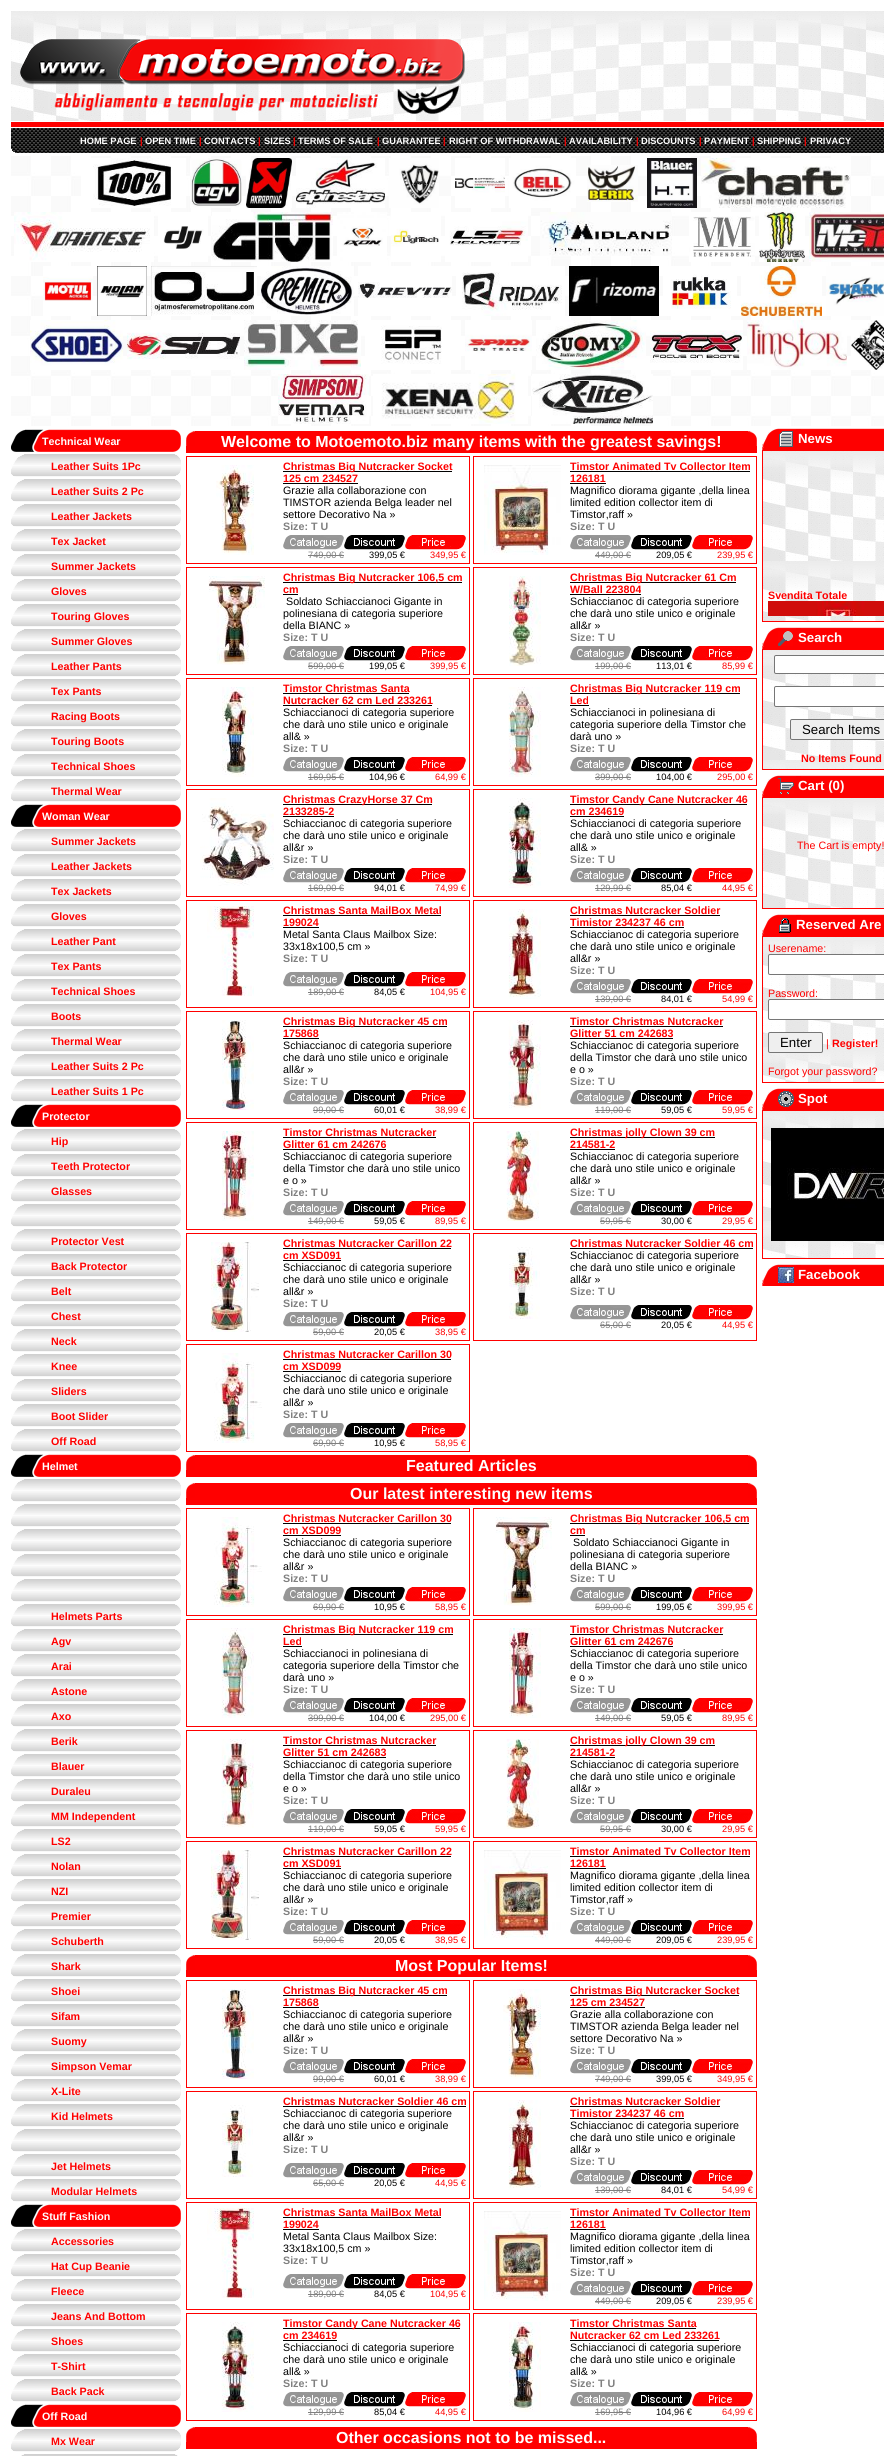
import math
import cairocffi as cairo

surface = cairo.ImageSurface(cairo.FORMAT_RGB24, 884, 2456)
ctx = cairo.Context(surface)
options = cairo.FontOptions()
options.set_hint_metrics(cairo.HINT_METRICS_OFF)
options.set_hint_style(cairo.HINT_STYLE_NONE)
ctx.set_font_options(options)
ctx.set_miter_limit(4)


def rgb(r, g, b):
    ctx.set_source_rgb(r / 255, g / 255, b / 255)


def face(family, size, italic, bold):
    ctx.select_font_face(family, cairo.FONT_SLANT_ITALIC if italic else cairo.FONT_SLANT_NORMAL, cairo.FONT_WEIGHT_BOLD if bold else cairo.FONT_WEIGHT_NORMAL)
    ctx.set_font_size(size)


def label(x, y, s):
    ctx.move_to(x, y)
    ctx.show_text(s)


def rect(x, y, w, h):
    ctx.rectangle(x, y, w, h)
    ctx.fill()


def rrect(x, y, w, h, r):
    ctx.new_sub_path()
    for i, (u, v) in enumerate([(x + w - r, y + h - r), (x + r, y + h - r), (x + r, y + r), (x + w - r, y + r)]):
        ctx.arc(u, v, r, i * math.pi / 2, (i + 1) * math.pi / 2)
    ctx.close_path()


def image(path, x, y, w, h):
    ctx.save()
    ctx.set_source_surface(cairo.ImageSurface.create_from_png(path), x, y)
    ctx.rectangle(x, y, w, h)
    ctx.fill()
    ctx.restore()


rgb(255, 255, 255)
ctx.paint()
image('image0.png', 11, 11, 873, 110)
image('image1.png', 20, 39, 445, 75)
rgb(255, 0, 0)
rect(11, 122, 873, 5)
image('image2.png', 11, 128, 4, 24)
image('image3.png', 15, 128, 869, 25)
face('Liberation Sans', 9.25, 0, 1)
rgb(255, 255, 255)
label(80, 144, 'HOME PAGE')
rgb(255, 0, 0)
label(140, 144, '|')
rgb(255, 255, 255)
label(145, 144, 'OPEN TIME')
rgb(255, 0, 0)
label(199, 144, '|')
rgb(255, 255, 255)
label(204, 144, 'CONTACTS')
rgb(255, 0, 0)
label(258, 144, '|')
rgb(255, 255, 255)
label(264, 144, 'SIZES')
rgb(255, 0, 0)
label(293, 144, '|')
rgb(255, 255, 255)
label(298, 144, 'TERMS OF SALE')
rgb(255, 0, 0)
label(377, 144, '|')
rgb(255, 255, 255)
label(382, 144, 'GUARANTEE')
rgb(255, 0, 0)
label(443, 144, '|')
rgb(255, 255, 255)
label(449, 144, 'RIGHT OF WITHDRAWAL')
rgb(255, 0, 0)
label(564, 144, '|')
rgb(255, 255, 255)
label(569, 144, 'AVAILABILITY')
rgb(255, 0, 0)
label(636, 144, '|')
rgb(255, 255, 255)
label(641, 144, 'DISCOUNTS')
rgb(255, 0, 0)
label(699, 144, '|')
rgb(255, 255, 255)
label(704, 144, 'PAYMENT')
rgb(255, 0, 0)
label(752, 144, '|')
rgb(255, 255, 255)
label(757, 144, 'SHIPPING')
rgb(255, 0, 0)
label(804, 144, '|')
rgb(255, 255, 255)
label(810, 144, 'PRIVACY')
image('image4.png', 11, 156, 873, 270)
image('image5.png', 81, 158, 105, 50)
image('image6.png', 190, 158, 52, 50)
image('image7.png', 246, 158, 46, 50)
image('image8.png', 296, 158, 89, 50)
image('image9.png', 389, 158, 50, 50)
image('image10.png', 455, 158, 50, 50)
image('image11.png', 509, 158, 67, 50)
image('image12.png', 587, 165, 51, 37)
image('image13.png', 647, 158, 50, 50)
image('image14.png', 701, 158, 149, 50)
image('image15.png', 14, 212, 140, 50)
image('image16.png', 158, 212, 50, 50)
image('image17.png', 212, 212, 121, 50)
image('image18.png', 337, 212, 50, 50)
image('image19.png', 391, 212, 50, 50)
image('image20.png', 445, 212, 83, 50)
image('image21.png', 540, 212, 132, 44)
image('image22.png', 689, 212, 66, 50)
image('image23.png', 759, 212, 46, 50)
image('image24.png', 809, 212, 75, 50)
image('image25.png', 43, 266, 50, 50)
image('image26.png', 97, 266, 50, 50)
image('image27.png', 151, 266, 106, 50)
image('image28.png', 261, 266, 93, 50)
image('image29.png', 358, 266, 94, 50)
image('image30.png', 456, 266, 109, 50)
image('image31.png', 569, 266, 90, 50)
image('image32.png', 663, 266, 74, 50)
image('image33.png', 741, 266, 81, 50)
image('image34.png', 826, 266, 58, 50)
image('image35.png', 30, 320, 93, 50)
image('image36.png', 127, 320, 113, 50)
image('image37.png', 244, 320, 117, 50)
image('image38.png', 365, 320, 96, 50)
image('image39.png', 465, 320, 67, 50)
image('image40.png', 536, 320, 110, 50)
image('image41.png', 650, 320, 93, 50)
image('image42.png', 747, 320, 100, 50)
image('image43.png', 851, 320, 33, 50)
image('image44.png', 278, 374, 91, 50)
image('image45.png', 373, 374, 155, 50)
image('image46.png', 532, 374, 121, 50)
image('image47.png', 11, 429, 170, 23)
face('Liberation Sans', 10.7, 0, 1)
label(42, 445, 'Technical Wear')
image('image48.png', 11, 454, 170, 23)
rgb(255, 0, 0)
label(51, 470, 'Leather Suits 1Pc')
image('image48.png', 11, 479, 170, 23)
label(51, 495, 'Leather Suits 2 Pc')
image('image48.png', 11, 504, 170, 23)
label(51, 520, 'Leather Jackets')
image('image48.png', 11, 529, 170, 23)
label(51, 545, 'Tex Jacket')
image('image48.png', 11, 554, 170, 23)
label(51, 570, 'Summer Jackets')
image('image48.png', 11, 579, 170, 23)
label(51, 595, 'Gloves')
image('image48.png', 11, 604, 170, 23)
label(51, 620, 'Touring Gloves')
image('image48.png', 11, 629, 170, 23)
label(51, 645, 'Summer Gloves')
image('image48.png', 11, 654, 170, 23)
label(51, 670, 'Leather Pants')
image('image48.png', 11, 679, 170, 23)
label(51, 695, 'Tex Pants')
image('image48.png', 11, 704, 170, 23)
label(51, 720, 'Racing Boots')
image('image48.png', 11, 729, 170, 23)
label(51, 745, 'Touring Boots')
image('image48.png', 11, 754, 170, 23)
label(51, 770, 'Technical Shoes')
image('image48.png', 11, 779, 170, 23)
label(51, 795, 'Thermal Wear')
image('image47.png', 11, 804, 170, 23)
rgb(255, 255, 255)
label(42, 820, 'Woman Wear')
image('image48.png', 11, 829, 170, 23)
rgb(255, 0, 0)
label(51, 845, 'Summer Jackets')
image('image48.png', 11, 854, 170, 23)
label(51, 870, 'Leather Jackets')
image('image48.png', 11, 879, 170, 23)
label(51, 895, 'Tex Jackets')
image('image48.png', 11, 904, 170, 23)
label(51, 920, 'Gloves')
image('image48.png', 11, 929, 170, 23)
label(51, 945, 'Leather Pant')
image('image48.png', 11, 954, 170, 23)
label(51, 970, 'Tex Pants')
image('image48.png', 11, 979, 170, 23)
label(51, 995, 'Technical Shoes')
image('image48.png', 11, 1004, 170, 23)
label(51, 1020, 'Boots')
image('image48.png', 11, 1029, 170, 23)
label(51, 1045, 'Thermal Wear')
image('image48.png', 11, 1054, 170, 23)
label(51, 1070, 'Leather Suits 2 Pc')
image('image48.png', 11, 1079, 170, 23)
label(51, 1095, 'Leather Suits 1 Pc')
image('image47.png', 11, 1104, 170, 23)
rgb(255, 255, 255)
label(42, 1120, 'Protector')
image('image48.png', 11, 1129, 170, 23)
rgb(255, 0, 0)
label(51, 1145, 'Hip')
image('image48.png', 11, 1154, 170, 23)
label(51, 1170, 'Teeth Protector')
image('image48.png', 11, 1179, 170, 23)
label(51, 1195, 'Glasses')
image('image48.png', 11, 1204, 170, 23)
image('image48.png', 11, 1229, 170, 23)
label(51, 1245, 'Protector Vest')
image('image48.png', 11, 1254, 170, 23)
label(51, 1270, 'Back Protector')
image('image48.png', 11, 1279, 170, 23)
label(51, 1295, 'Belt')
image('image48.png', 11, 1304, 170, 23)
label(51, 1320, 'Chest')
image('image48.png', 11, 1329, 170, 23)
label(51, 1345, 'Neck')
image('image48.png', 11, 1354, 170, 23)
label(51, 1370, 'Knee')
image('image48.png', 11, 1379, 170, 23)
label(51, 1395, 'Sliders')
image('image48.png', 11, 1404, 170, 23)
label(51, 1420, 'Boot Slider')
image('image48.png', 11, 1429, 170, 23)
label(51, 1445, 'Off Road')
image('image47.png', 11, 1454, 170, 23)
rgb(255, 255, 255)
label(42, 1470, 'Helmet')
image('image48.png', 11, 1479, 170, 23)
image('image48.png', 11, 1504, 170, 23)
image('image48.png', 11, 1529, 170, 23)
image('image48.png', 11, 1554, 170, 23)
image('image48.png', 11, 1579, 170, 23)
image('image48.png', 11, 1604, 170, 23)
rgb(255, 0, 0)
label(51, 1620, 'Helmets Parts')
image('image48.png', 11, 1629, 170, 23)
label(51, 1645, 'Agv')
image('image48.png', 11, 1654, 170, 23)
label(51, 1670, 'Arai')
image('image48.png', 11, 1679, 170, 23)
label(51, 1695, 'Astone')
image('image48.png', 11, 1704, 170, 23)
label(51, 1720, 'Axo')
image('image48.png', 11, 1729, 170, 23)
label(51, 1745, 'Berik')
image('image48.png', 11, 1754, 170, 23)
label(51, 1770, 'Blauer')
image('image48.png', 11, 1779, 170, 23)
label(51, 1795, 'Duraleu')
image('image48.png', 11, 1804, 170, 23)
label(51, 1820, 'MM Independent')
image('image48.png', 11, 1829, 170, 23)
label(51, 1845, 'LS2')
image('image48.png', 11, 1854, 170, 23)
label(51, 1870, 'Nolan')
image('image48.png', 11, 1879, 170, 23)
label(51, 1895, 'NZI')
image('image48.png', 11, 1904, 170, 23)
label(51, 1920, 'Premier')
image('image48.png', 11, 1929, 170, 23)
label(51, 1945, 'Schuberth')
image('image48.png', 11, 1954, 170, 23)
label(51, 1970, 'Shark')
image('image48.png', 11, 1979, 170, 23)
label(51, 1995, 'Shoei')
image('image48.png', 11, 2004, 170, 23)
label(51, 2020, 'Sifam')
image('image48.png', 11, 2029, 170, 23)
label(51, 2045, 'Suomy')
image('image48.png', 11, 2054, 170, 23)
label(51, 2070, 'Simpson Vemar')
image('image48.png', 11, 2079, 170, 23)
label(51, 2095, 'X-Lite')
image('image48.png', 11, 2104, 170, 23)
label(51, 2120, 'Kid Helmets')
image('image48.png', 11, 2129, 170, 23)
image('image48.png', 11, 2154, 170, 23)
label(51, 2170, 'Jet Helmets')
image('image48.png', 11, 2179, 170, 23)
label(51, 2195, 'Modular Helmets')
image('image47.png', 11, 2204, 170, 23)
rgb(255, 255, 255)
label(42, 2220, 'Stuff Fashion')
image('image48.png', 11, 2229, 170, 23)
rgb(255, 0, 0)
label(51, 2245, 'Accessories')
image('image48.png', 11, 2254, 170, 23)
label(51, 2270, 'Hat Cup Beanie')
image('image48.png', 11, 2279, 170, 23)
label(51, 2295, 'Fleece')
image('image48.png', 11, 2304, 170, 23)
label(51, 2320, 'Jeans And Bottom')
image('image48.png', 11, 2329, 170, 23)
label(51, 2345, 'Shoes')
image('image48.png', 11, 2354, 170, 23)
label(51, 2370, 'T-Shirt')
image('image48.png', 11, 2379, 170, 23)
label(51, 2395, 'Back Pack')
image('image47.png', 11, 2404, 170, 23)
rgb(255, 255, 255)
label(42, 2420, 'Off Road')
image('image48.png', 11, 2429, 170, 23)
rgb(255, 0, 0)
label(51, 2445, 'Mx Wear')
image('image49.png', 21, 2454, 157, 2)
rect(186, 431, 571, 22)
image('image50.png', 186, 431, 9, 15)
face('Liberation Sans', 16, 0, 1)
rgb(255, 255, 255)
label(221, 447, 'Welcome to Motoemoto.biz many items with the greatest savings!')
image('image51.png', 748, 431, 9, 15)
ctx.rectangle(186.5, 456.5, 283, 107)
rgb(255, 0, 0)
ctx.set_line_width(1)
ctx.stroke()
image('image52.png', 216, 465, 38, 90)
rgb(0, 0, 0)
rect(283, 471, 169, 1)
face('Liberation Sans', 10.7, 0, 1)
rgb(255, 0, 0)
label(283, 470, 'Christmas Big Nutcracker Socket')
label(283, 482, '125 cm 234527')
rgb(0, 0, 0)
rect(283, 483, 75, 1)
face('Liberation Sans', 10.7, 0, 0)
label(283, 494, 'Grazie alla collaborazione con')
label(283, 506, 'TIMSTOR azienda Belga leader nel')
label(283, 518, 'settore Decorativo Na »')
face('Liberation Sans', 10.7, 0, 1)
rgb(128, 128, 128)
label(283, 530, 'Size: T U')
image('image53.png', 283, 535, 61, 15)
image('image54.png', 344, 535, 61, 15)
image('image55.png', 405, 535, 61, 15)
face('Liberation Sans', 9.25, 0, 0)
label(308, 558, '749,00 €')
rect(308, 555, 36, 1)
rgb(0, 0, 0)
label(369, 558, '399,05 €')
rgb(255, 0, 0)
label(430, 558, '349,95 €')
ctx.rectangle(473.5, 456.5, 283, 107)
ctx.stroke()
image('image56.png', 484, 465, 77, 90)
face('Liberation Sans', 10.7, 0, 1)
label(570, 470, 'Timstor Animated Tv Collector Item')
rgb(0, 0, 0)
rect(570, 471, 180, 1)
rgb(255, 0, 0)
label(570, 482, '126181')
rgb(0, 0, 0)
rect(570, 483, 36, 1)
face('Liberation Sans', 10.7, 0, 0)
label(570, 494, 'Magnifico diorama gigante ,della linea')
label(570, 506, 'limited edition collector item di')
label(570, 518, 'Timstor,raff »')
face('Liberation Sans', 10.7, 0, 1)
rgb(128, 128, 128)
label(570, 530, 'Size: T U')
image('image53.png', 570, 535, 61, 15)
image('image54.png', 631, 535, 61, 15)
image('image55.png', 692, 535, 61, 15)
face('Liberation Sans', 9.25, 0, 0)
label(595, 558, '449,00 €')
rect(595, 555, 36, 1)
rgb(0, 0, 0)
label(656, 558, '209,05 €')
rgb(255, 0, 0)
label(717, 558, '239,95 €')
ctx.rectangle(186.5, 567.5, 283, 107)
ctx.stroke()
image('image57.png', 208, 576, 57, 89)
rgb(0, 0, 0)
rect(283, 582, 179, 1)
face('Liberation Sans', 10.7, 0, 1)
rgb(255, 0, 0)
label(283, 581, 'Christmas Big Nutcracker 106,5 cm')
label(283, 593, 'cm')
rgb(0, 0, 0)
rect(283, 594, 15, 1)
face('Liberation Sans', 10.7, 0, 0)
label(286, 605, 'Soldato Schiaccianoci Gigante in')
label(283, 617, 'polinesiana di categoria superiore')
label(283, 629, 'della BIANC »')
face('Liberation Sans', 10.7, 0, 1)
rgb(128, 128, 128)
label(283, 641, 'Size: T U')
image('image53.png', 283, 646, 61, 15)
image('image54.png', 344, 646, 61, 15)
image('image55.png', 405, 646, 61, 15)
face('Liberation Sans', 9.25, 0, 0)
label(308, 669, '599,00 €')
rect(308, 666, 36, 1)
rgb(0, 0, 0)
label(369, 669, '199,05 €')
rgb(255, 0, 0)
label(430, 669, '399,95 €')
ctx.rectangle(473.5, 567.5, 283, 107)
ctx.stroke()
image('image58.png', 509, 576, 32, 90)
rgb(0, 0, 0)
rect(570, 582, 166, 1)
face('Liberation Sans', 10.7, 0, 1)
rgb(255, 0, 0)
label(570, 581, 'Christmas Big Nutcracker 61 Cm')
label(570, 593, 'W/Ball 223804')
rgb(0, 0, 0)
rect(570, 594, 71, 1)
face('Liberation Sans', 10.7, 0, 0)
label(570, 605, 'Schiaccianoc di categoria superiore')
label(570, 617, 'che darà uno stile unico e originale')
label(570, 629, 'all&r »')
face('Liberation Sans', 10.7, 0, 1)
rgb(128, 128, 128)
label(570, 641, 'Size: T U')
image('image53.png', 570, 646, 61, 15)
image('image54.png', 631, 646, 61, 15)
image('image55.png', 692, 646, 61, 15)
face('Liberation Sans', 9.25, 0, 0)
label(595, 669, '199,00 €')
rect(595, 666, 36, 1)
rgb(0, 0, 0)
label(656, 669, '113,01 €')
rgb(255, 0, 0)
label(722, 669, '85,99 €')
ctx.rectangle(186.5, 678.5, 283, 107)
ctx.stroke()
image('image59.png', 222, 687, 32, 90)
face('Liberation Sans', 10.7, 0, 1)
label(283, 692, 'Timstor Christmas Santa')
rgb(0, 0, 0)
rect(283, 693, 126, 1)
rgb(255, 0, 0)
label(283, 704, 'Nutcracker 62 cm Led 233261')
rgb(0, 0, 0)
rect(283, 705, 149, 1)
face('Liberation Sans', 10.7, 0, 0)
label(283, 716, 'Schiaccianoci di categoria superiore')
label(283, 728, 'che darà uno stile unico e originale')
label(283, 740, 'all& »')
face('Liberation Sans', 10.7, 0, 1)
rgb(128, 128, 128)
label(283, 752, 'Size: T U')
image('image53.png', 283, 757, 61, 15)
image('image54.png', 344, 757, 61, 15)
image('image55.png', 405, 757, 61, 15)
face('Liberation Sans', 9.25, 0, 0)
label(308, 780, '169,95 €')
rect(308, 777, 36, 1)
rgb(0, 0, 0)
label(369, 780, '104,96 €')
rgb(255, 0, 0)
label(435, 780, '64,99 €')
ctx.rectangle(473.5, 678.5, 283, 107)
ctx.stroke()
image('image60.png', 508, 687, 33, 90)
rgb(0, 0, 0)
rect(570, 693, 170, 1)
face('Liberation Sans', 10.7, 0, 1)
rgb(255, 0, 0)
label(570, 692, 'Christmas Big Nutcracker 119 cm')
label(570, 704, 'Led')
rgb(0, 0, 0)
rect(570, 705, 19, 1)
face('Liberation Sans', 10.7, 0, 0)
label(570, 716, 'Schiaccianoci in polinesiana di')
label(570, 728, 'categoria superiore della Timstor che')
label(570, 740, 'darà uno »')
face('Liberation Sans', 10.7, 0, 1)
rgb(128, 128, 128)
label(570, 752, 'Size: T U')
image('image53.png', 570, 757, 61, 15)
image('image54.png', 631, 757, 61, 15)
image('image55.png', 692, 757, 61, 15)
face('Liberation Sans', 9.25, 0, 0)
label(595, 780, '399,00 €')
rect(595, 777, 36, 1)
rgb(0, 0, 0)
label(656, 780, '104,00 €')
rgb(255, 0, 0)
label(717, 780, '295,00 €')
ctx.rectangle(186.5, 789.5, 283, 107)
ctx.stroke()
image('image61.png', 200, 798, 74, 88)
rgb(0, 0, 0)
rect(283, 804, 149, 1)
face('Liberation Sans', 10.7, 0, 1)
rgb(255, 0, 0)
label(283, 803, 'Christmas CrazyHorse 37 Cm')
label(283, 815, '2133285-2')
rgb(0, 0, 0)
rect(283, 816, 51, 1)
face('Liberation Sans', 10.7, 0, 0)
label(283, 827, 'Schiaccianoc di categoria superiore')
label(283, 839, 'che darà uno stile unico e originale')
label(283, 851, 'all&r »')
face('Liberation Sans', 10.7, 0, 1)
rgb(128, 128, 128)
label(283, 863, 'Size: T U')
image('image53.png', 283, 868, 61, 15)
image('image54.png', 344, 868, 61, 15)
image('image55.png', 405, 868, 61, 15)
face('Liberation Sans', 9.25, 0, 0)
label(308, 891, '169,00 €')
rect(308, 888, 36, 1)
rgb(0, 0, 0)
label(374, 891, '94,01 €')
rgb(255, 0, 0)
label(435, 891, '74,99 €')
ctx.rectangle(473.5, 789.5, 283, 107)
ctx.stroke()
image('image62.png', 508, 798, 33, 90)
rgb(0, 0, 0)
rect(570, 804, 177, 1)
face('Liberation Sans', 10.7, 0, 1)
rgb(255, 0, 0)
label(570, 803, 'Timstor Candy Cane Nutcracker 46')
label(570, 815, 'cm 234619')
rgb(0, 0, 0)
rect(570, 816, 54, 1)
face('Liberation Sans', 10.7, 0, 0)
label(570, 827, 'Schiaccianoci di categoria superiore')
label(570, 839, 'che darà uno stile unico e originale')
label(570, 851, 'all& »')
face('Liberation Sans', 10.7, 0, 1)
rgb(128, 128, 128)
label(570, 863, 'Size: T U')
image('image53.png', 570, 868, 61, 15)
image('image54.png', 631, 868, 61, 15)
image('image55.png', 692, 868, 61, 15)
face('Liberation Sans', 9.25, 0, 0)
label(595, 891, '129,99 €')
rect(595, 888, 36, 1)
rgb(0, 0, 0)
label(661, 891, '85,04 €')
rgb(255, 0, 0)
label(722, 891, '44,95 €')
ctx.rectangle(186.5, 900.5, 283, 107)
ctx.stroke()
image('image63.png', 207, 906, 47, 90)
face('Liberation Sans', 10.7, 0, 1)
label(283, 914, 'Christmas Santa MailBox Metal')
rgb(0, 0, 0)
rect(283, 915, 158, 1)
rgb(255, 0, 0)
label(283, 926, '199024')
rgb(0, 0, 0)
rect(283, 927, 36, 1)
face('Liberation Sans', 10.7, 0, 0)
label(283, 938, 'Metal Santa Claus Mailbox Size:')
label(283, 950, '33x18x100,5 cm »')
face('Liberation Sans', 10.7, 0, 1)
rgb(128, 128, 128)
label(283, 962, 'Size: T U')
image('image53.png', 283, 972, 61, 15)
image('image54.png', 344, 972, 61, 15)
image('image55.png', 405, 972, 61, 15)
face('Liberation Sans', 9.25, 0, 0)
label(308, 995, '189,00 €')
rect(308, 992, 36, 1)
rgb(0, 0, 0)
label(374, 995, '84,05 €')
rgb(255, 0, 0)
label(430, 995, '104,95 €')
ctx.rectangle(473.5, 900.5, 283, 107)
ctx.stroke()
image('image64.png', 508, 909, 33, 90)
face('Liberation Sans', 10.7, 0, 1)
label(570, 914, 'Christmas Nutcracker Soldier')
rgb(0, 0, 0)
rect(570, 915, 150, 1)
rgb(255, 0, 0)
label(570, 926, 'Timistor 234237 46 cm')
rgb(0, 0, 0)
rect(570, 927, 114, 1)
face('Liberation Sans', 10.7, 0, 0)
label(570, 938, 'Schiaccianoc di categoria superiore')
label(570, 950, 'che darà uno stile unico e originale')
label(570, 962, 'all&r »')
face('Liberation Sans', 10.7, 0, 1)
rgb(128, 128, 128)
label(570, 974, 'Size: T U')
image('image53.png', 570, 979, 61, 15)
image('image54.png', 631, 979, 61, 15)
image('image55.png', 692, 979, 61, 15)
face('Liberation Sans', 9.25, 0, 0)
label(595, 1002, '139,00 €')
rect(595, 999, 36, 1)
rgb(0, 0, 0)
label(661, 1002, '84,01 €')
rgb(255, 0, 0)
label(722, 1002, '54,99 €')
ctx.rectangle(186.5, 1011.5, 283, 107)
ctx.stroke()
image('image65.png', 222, 1020, 32, 90)
rgb(0, 0, 0)
rect(283, 1026, 164, 1)
face('Liberation Sans', 10.7, 0, 1)
rgb(255, 0, 0)
label(283, 1025, 'Christmas Big Nutcracker 45 cm')
label(283, 1037, '175868')
rgb(0, 0, 0)
rect(283, 1038, 36, 1)
face('Liberation Sans', 10.7, 0, 0)
label(283, 1049, 'Schiaccianoc di categoria superiore')
label(283, 1061, 'che darà uno stile unico e originale')
label(283, 1073, 'all&r »')
face('Liberation Sans', 10.7, 0, 1)
rgb(128, 128, 128)
label(283, 1085, 'Size: T U')
image('image53.png', 283, 1090, 61, 15)
image('image54.png', 344, 1090, 61, 15)
image('image55.png', 405, 1090, 61, 15)
face('Liberation Sans', 9.25, 0, 0)
label(313, 1113, '99,00 €')
rect(313, 1110, 31, 1)
rgb(0, 0, 0)
label(374, 1113, '60,01 €')
rgb(255, 0, 0)
label(435, 1113, '38,99 €')
ctx.rectangle(473.5, 1011.5, 283, 107)
ctx.stroke()
image('image66.png', 508, 1020, 33, 89)
face('Liberation Sans', 10.7, 0, 1)
label(570, 1025, 'Timstor Christmas Nutcracker')
rgb(0, 0, 0)
rect(570, 1026, 153, 1)
rgb(255, 0, 0)
label(570, 1037, 'Glitter 51 cm 242683')
rgb(0, 0, 0)
rect(570, 1038, 103, 1)
face('Liberation Sans', 10.7, 0, 0)
label(570, 1049, 'Schiaccianoc di categoria superiore')
label(570, 1061, 'della Timstor che darà uno stile unico')
label(570, 1073, 'e o »')
face('Liberation Sans', 10.7, 0, 1)
rgb(128, 128, 128)
label(570, 1085, 'Size: T U')
image('image53.png', 570, 1090, 61, 15)
image('image54.png', 631, 1090, 61, 15)
image('image55.png', 692, 1090, 61, 15)
face('Liberation Sans', 9.25, 0, 0)
label(595, 1113, '119,00 €')
rect(595, 1110, 36, 1)
rgb(0, 0, 0)
label(661, 1113, '59,05 €')
rgb(255, 0, 0)
label(722, 1113, '59,95 €')
ctx.rectangle(186.5, 1122.5, 283, 107)
ctx.stroke()
image('image67.png', 222, 1131, 32, 90)
face('Liberation Sans', 10.7, 0, 1)
label(283, 1136, 'Timstor Christmas Nutcracker')
rgb(0, 0, 0)
rect(283, 1137, 153, 1)
rgb(255, 0, 0)
label(283, 1148, 'Glitter 61 cm 242676')
rgb(0, 0, 0)
rect(283, 1149, 103, 1)
face('Liberation Sans', 10.7, 0, 0)
label(283, 1160, 'Schiaccianoc di categoria superiore')
label(283, 1172, 'della Timstor che darà uno stile unico')
label(283, 1184, 'e o »')
face('Liberation Sans', 10.7, 0, 1)
rgb(128, 128, 128)
label(283, 1196, 'Size: T U')
image('image53.png', 283, 1201, 61, 15)
image('image54.png', 344, 1201, 61, 15)
image('image55.png', 405, 1201, 61, 15)
face('Liberation Sans', 9.25, 0, 0)
label(308, 1224, '149,00 €')
rect(308, 1221, 36, 1)
rgb(0, 0, 0)
label(374, 1224, '59,05 €')
rgb(255, 0, 0)
label(435, 1224, '89,95 €')
ctx.rectangle(473.5, 1122.5, 283, 107)
ctx.stroke()
image('image68.png', 506, 1131, 33, 90)
rgb(0, 0, 0)
rect(570, 1137, 145, 1)
face('Liberation Sans', 10.7, 0, 1)
rgb(255, 0, 0)
label(570, 1136, 'Christmas jolly Clown 39 cm')
label(570, 1148, '214581-2')
rgb(0, 0, 0)
rect(570, 1149, 45, 1)
face('Liberation Sans', 10.7, 0, 0)
label(570, 1160, 'Schiaccianoc di categoria superiore')
label(570, 1172, 'che darà uno stile unico e originale')
label(570, 1184, 'all&r »')
face('Liberation Sans', 10.7, 0, 1)
rgb(128, 128, 128)
label(570, 1196, 'Size: T U')
image('image53.png', 570, 1201, 61, 15)
image('image54.png', 631, 1201, 61, 15)
image('image55.png', 692, 1201, 61, 15)
face('Liberation Sans', 9.25, 0, 0)
label(600, 1224, '59,95 €')
rect(600, 1221, 31, 1)
rgb(0, 0, 0)
label(661, 1224, '30,00 €')
rgb(255, 0, 0)
label(722, 1224, '29,95 €')
ctx.rectangle(186.5, 1233.5, 283, 107)
ctx.stroke()
image('image69.png', 211, 1242, 48, 90)
face('Liberation Sans', 10.7, 0, 1)
label(283, 1247, 'Christmas Nutcracker Carillon 22')
rgb(0, 0, 0)
rect(283, 1248, 168, 1)
rgb(255, 0, 0)
label(283, 1259, 'cm XSD091')
rgb(0, 0, 0)
rect(283, 1260, 58, 1)
face('Liberation Sans', 10.7, 0, 0)
label(283, 1271, 'Schiaccianoc di categoria superiore')
label(283, 1283, 'che darà uno stile unico e originale')
label(283, 1295, 'all&r »')
face('Liberation Sans', 10.7, 0, 1)
rgb(128, 128, 128)
label(283, 1307, 'Size: T U')
image('image53.png', 283, 1312, 61, 15)
image('image54.png', 344, 1312, 61, 15)
image('image55.png', 405, 1312, 61, 15)
face('Liberation Sans', 9.25, 0, 0)
label(313, 1335, '59,00 €')
rect(313, 1332, 31, 1)
rgb(0, 0, 0)
label(374, 1335, '20,05 €')
rgb(255, 0, 0)
label(435, 1335, '38,95 €')
ctx.rectangle(473.5, 1233.5, 283, 107)
ctx.stroke()
image('image70.png', 509, 1247, 31, 72)
face('Liberation Sans', 10.7, 0, 1)
label(570, 1247, 'Christmas Nutcracker Soldier 46 cm')
rgb(0, 0, 0)
rect(570, 1248, 183, 1)
face('Liberation Sans', 10.7, 0, 0)
label(570, 1259, 'Schiaccianoc di categoria superiore')
label(570, 1271, 'che darà uno stile unico e originale')
label(570, 1283, 'all&r »')
face('Liberation Sans', 10.7, 0, 1)
rgb(128, 128, 128)
label(570, 1295, 'Size: T U')
image('image53.png', 570, 1305, 61, 15)
image('image54.png', 631, 1305, 61, 15)
image('image55.png', 692, 1305, 61, 15)
face('Liberation Sans', 9.25, 0, 0)
label(600, 1328, '65,00 €')
rect(600, 1325, 31, 1)
rgb(0, 0, 0)
label(661, 1328, '20,05 €')
rgb(255, 0, 0)
label(722, 1328, '44,95 €')
ctx.rectangle(186.5, 1344.5, 283, 107)
ctx.stroke()
image('image71.png', 214, 1353, 48, 90)
face('Liberation Sans', 10.7, 0, 1)
label(283, 1358, 'Christmas Nutcracker Carillon 30')
rgb(0, 0, 0)
rect(283, 1359, 168, 1)
rgb(255, 0, 0)
label(283, 1370, 'cm XSD099')
rgb(0, 0, 0)
rect(283, 1371, 58, 1)
face('Liberation Sans', 10.7, 0, 0)
label(283, 1382, 'Schiaccianoc di categoria superiore')
label(283, 1394, 'che darà uno stile unico e originale')
label(283, 1406, 'all&r »')
face('Liberation Sans', 10.7, 0, 1)
rgb(128, 128, 128)
label(283, 1418, 'Size: T U')
image('image53.png', 283, 1423, 61, 15)
image('image54.png', 344, 1423, 61, 15)
image('image55.png', 405, 1423, 61, 15)
face('Liberation Sans', 9.25, 0, 0)
label(313, 1446, '69,90 €')
rect(313, 1443, 31, 1)
rgb(0, 0, 0)
label(374, 1446, '10,95 €')
rgb(255, 0, 0)
label(435, 1446, '58,95 €')
rect(186, 1455, 571, 22)
image('image50.png', 186, 1455, 9, 15)
face('Liberation Sans', 16, 0, 1)
rgb(255, 255, 255)
label(406, 1471, 'Featured Articles')
image('image51.png', 748, 1455, 9, 15)
rgb(255, 0, 0)
rect(186, 1483, 571, 22)
image('image50.png', 186, 1483, 9, 15)
rgb(255, 255, 255)
label(350, 1499, 'Our latest interesting new items')
image('image51.png', 748, 1483, 9, 15)
ctx.rectangle(186.5, 1508.5, 283, 107)
rgb(255, 0, 0)
ctx.stroke()
image('image71.png', 214, 1517, 48, 90)
face('Liberation Sans', 10.7, 0, 1)
label(283, 1522, 'Christmas Nutcracker Carillon 30')
rgb(0, 0, 0)
rect(283, 1523, 168, 1)
rgb(255, 0, 0)
label(283, 1534, 'cm XSD099')
rgb(0, 0, 0)
rect(283, 1535, 58, 1)
face('Liberation Sans', 10.7, 0, 0)
label(283, 1546, 'Schiaccianoc di categoria superiore')
label(283, 1558, 'che darà uno stile unico e originale')
label(283, 1570, 'all&r »')
face('Liberation Sans', 10.7, 0, 1)
rgb(128, 128, 128)
label(283, 1582, 'Size: T U')
image('image53.png', 283, 1587, 61, 15)
image('image54.png', 344, 1587, 61, 15)
image('image55.png', 405, 1587, 61, 15)
face('Liberation Sans', 9.25, 0, 0)
label(313, 1610, '69,90 €')
rect(313, 1607, 31, 1)
rgb(0, 0, 0)
label(374, 1610, '10,95 €')
rgb(255, 0, 0)
label(435, 1610, '58,95 €')
ctx.rectangle(473.5, 1508.5, 283, 107)
ctx.stroke()
image('image57.png', 495, 1517, 57, 89)
rgb(0, 0, 0)
rect(570, 1523, 179, 1)
face('Liberation Sans', 10.7, 0, 1)
rgb(255, 0, 0)
label(570, 1522, 'Christmas Big Nutcracker 106,5 cm')
label(570, 1534, 'cm')
rgb(0, 0, 0)
rect(570, 1535, 15, 1)
face('Liberation Sans', 10.7, 0, 0)
label(573, 1546, 'Soldato Schiaccianoci Gigante in')
label(570, 1558, 'polinesiana di categoria superiore')
label(570, 1570, 'della BIANC »')
face('Liberation Sans', 10.7, 0, 1)
rgb(128, 128, 128)
label(570, 1582, 'Size: T U')
image('image53.png', 570, 1587, 61, 15)
image('image54.png', 631, 1587, 61, 15)
image('image55.png', 692, 1587, 61, 15)
face('Liberation Sans', 9.25, 0, 0)
label(595, 1610, '599,00 €')
rect(595, 1607, 36, 1)
rgb(0, 0, 0)
label(656, 1610, '199,05 €')
rgb(255, 0, 0)
label(717, 1610, '399,95 €')
ctx.rectangle(186.5, 1619.5, 283, 107)
ctx.stroke()
image('image60.png', 221, 1628, 33, 90)
rgb(0, 0, 0)
rect(283, 1634, 170, 1)
face('Liberation Sans', 10.7, 0, 1)
rgb(255, 0, 0)
label(283, 1633, 'Christmas Big Nutcracker 119 cm')
label(283, 1645, 'Led')
rgb(0, 0, 0)
rect(283, 1646, 19, 1)
face('Liberation Sans', 10.7, 0, 0)
label(283, 1657, 'Schiaccianoci in polinesiana di')
label(283, 1669, 'categoria superiore della Timstor che')
label(283, 1681, 'darà uno »')
face('Liberation Sans', 10.7, 0, 1)
rgb(128, 128, 128)
label(283, 1693, 'Size: T U')
image('image53.png', 283, 1698, 61, 15)
image('image54.png', 344, 1698, 61, 15)
image('image55.png', 405, 1698, 61, 15)
face('Liberation Sans', 9.25, 0, 0)
label(308, 1721, '399,00 €')
rect(308, 1718, 36, 1)
rgb(0, 0, 0)
label(369, 1721, '104,00 €')
rgb(255, 0, 0)
label(430, 1721, '295,00 €')
ctx.rectangle(473.5, 1619.5, 283, 107)
ctx.stroke()
image('image67.png', 509, 1628, 32, 90)
face('Liberation Sans', 10.7, 0, 1)
label(570, 1633, 'Timstor Christmas Nutcracker')
rgb(0, 0, 0)
rect(570, 1634, 153, 1)
rgb(255, 0, 0)
label(570, 1645, 'Glitter 61 cm 242676')
rgb(0, 0, 0)
rect(570, 1646, 103, 1)
face('Liberation Sans', 10.7, 0, 0)
label(570, 1657, 'Schiaccianoc di categoria superiore')
label(570, 1669, 'della Timstor che darà uno stile unico')
label(570, 1681, 'e o »')
face('Liberation Sans', 10.7, 0, 1)
rgb(128, 128, 128)
label(570, 1693, 'Size: T U')
image('image53.png', 570, 1698, 61, 15)
image('image54.png', 631, 1698, 61, 15)
image('image55.png', 692, 1698, 61, 15)
face('Liberation Sans', 9.25, 0, 0)
label(595, 1721, '149,00 €')
rect(595, 1718, 36, 1)
rgb(0, 0, 0)
label(661, 1721, '59,05 €')
rgb(255, 0, 0)
label(722, 1721, '89,95 €')
ctx.rectangle(186.5, 1730.5, 283, 107)
ctx.stroke()
image('image66.png', 221, 1739, 33, 89)
face('Liberation Sans', 10.7, 0, 1)
label(283, 1744, 'Timstor Christmas Nutcracker')
rgb(0, 0, 0)
rect(283, 1745, 153, 1)
rgb(255, 0, 0)
label(283, 1756, 'Glitter 51 cm 242683')
rgb(0, 0, 0)
rect(283, 1757, 103, 1)
face('Liberation Sans', 10.7, 0, 0)
label(283, 1768, 'Schiaccianoc di categoria superiore')
label(283, 1780, 'della Timstor che darà uno stile unico')
label(283, 1792, 'e o »')
face('Liberation Sans', 10.7, 0, 1)
rgb(128, 128, 128)
label(283, 1804, 'Size: T U')
image('image53.png', 283, 1809, 61, 15)
image('image54.png', 344, 1809, 61, 15)
image('image55.png', 405, 1809, 61, 15)
face('Liberation Sans', 9.25, 0, 0)
label(308, 1832, '119,00 €')
rect(308, 1829, 36, 1)
rgb(0, 0, 0)
label(374, 1832, '59,05 €')
rgb(255, 0, 0)
label(435, 1832, '59,95 €')
ctx.rectangle(473.5, 1730.5, 283, 107)
ctx.stroke()
image('image68.png', 506, 1739, 33, 90)
rgb(0, 0, 0)
rect(570, 1745, 145, 1)
face('Liberation Sans', 10.7, 0, 1)
rgb(255, 0, 0)
label(570, 1744, 'Christmas jolly Clown 39 cm')
label(570, 1756, '214581-2')
rgb(0, 0, 0)
rect(570, 1757, 45, 1)
face('Liberation Sans', 10.7, 0, 0)
label(570, 1768, 'Schiaccianoc di categoria superiore')
label(570, 1780, 'che darà uno stile unico e originale')
label(570, 1792, 'all&r »')
face('Liberation Sans', 10.7, 0, 1)
rgb(128, 128, 128)
label(570, 1804, 'Size: T U')
image('image53.png', 570, 1809, 61, 15)
image('image54.png', 631, 1809, 61, 15)
image('image55.png', 692, 1809, 61, 15)
face('Liberation Sans', 9.25, 0, 0)
label(600, 1832, '59,95 €')
rect(600, 1829, 31, 1)
rgb(0, 0, 0)
label(661, 1832, '30,00 €')
rgb(255, 0, 0)
label(722, 1832, '29,95 €')
ctx.rectangle(186.5, 1841.5, 283, 107)
ctx.stroke()
image('image69.png', 211, 1850, 48, 90)
face('Liberation Sans', 10.7, 0, 1)
label(283, 1855, 'Christmas Nutcracker Carillon 22')
rgb(0, 0, 0)
rect(283, 1856, 168, 1)
rgb(255, 0, 0)
label(283, 1867, 'cm XSD091')
rgb(0, 0, 0)
rect(283, 1868, 58, 1)
face('Liberation Sans', 10.7, 0, 0)
label(283, 1879, 'Schiaccianoc di categoria superiore')
label(283, 1891, 'che darà uno stile unico e originale')
label(283, 1903, 'all&r »')
face('Liberation Sans', 10.7, 0, 1)
rgb(128, 128, 128)
label(283, 1915, 'Size: T U')
image('image53.png', 283, 1920, 61, 15)
image('image54.png', 344, 1920, 61, 15)
image('image55.png', 405, 1920, 61, 15)
face('Liberation Sans', 9.25, 0, 0)
label(313, 1943, '59,00 €')
rect(313, 1940, 31, 1)
rgb(0, 0, 0)
label(374, 1943, '20,05 €')
rgb(255, 0, 0)
label(435, 1943, '38,95 €')
ctx.rectangle(473.5, 1841.5, 283, 107)
ctx.stroke()
image('image56.png', 484, 1850, 77, 90)
face('Liberation Sans', 10.7, 0, 1)
label(570, 1855, 'Timstor Animated Tv Collector Item')
rgb(0, 0, 0)
rect(570, 1856, 180, 1)
rgb(255, 0, 0)
label(570, 1867, '126181')
rgb(0, 0, 0)
rect(570, 1868, 36, 1)
face('Liberation Sans', 10.7, 0, 0)
label(570, 1879, 'Magnifico diorama gigante ,della linea')
label(570, 1891, 'limited edition collector item di')
label(570, 1903, 'Timstor,raff »')
face('Liberation Sans', 10.7, 0, 1)
rgb(128, 128, 128)
label(570, 1915, 'Size: T U')
image('image53.png', 570, 1920, 61, 15)
image('image54.png', 631, 1920, 61, 15)
image('image55.png', 692, 1920, 61, 15)
face('Liberation Sans', 9.25, 0, 0)
label(595, 1943, '449,00 €')
rect(595, 1940, 36, 1)
rgb(0, 0, 0)
label(656, 1943, '209,05 €')
rgb(255, 0, 0)
label(717, 1943, '239,95 €')
rect(186, 1955, 571, 22)
image('image50.png', 186, 1955, 9, 15)
face('Liberation Sans', 16, 0, 1)
rgb(255, 255, 255)
label(395, 1971, 'Most Popular Items!')
image('image51.png', 748, 1955, 9, 15)
ctx.rectangle(186.5, 1980.5, 283, 107)
rgb(255, 0, 0)
ctx.stroke()
image('image65.png', 222, 1989, 32, 90)
rgb(0, 0, 0)
rect(283, 1995, 164, 1)
face('Liberation Sans', 10.7, 0, 1)
rgb(255, 0, 0)
label(283, 1994, 'Christmas Big Nutcracker 45 cm')
label(283, 2006, '175868')
rgb(0, 0, 0)
rect(283, 2007, 36, 1)
face('Liberation Sans', 10.7, 0, 0)
label(283, 2018, 'Schiaccianoc di categoria superiore')
label(283, 2030, 'che darà uno stile unico e originale')
label(283, 2042, 'all&r »')
face('Liberation Sans', 10.7, 0, 1)
rgb(128, 128, 128)
label(283, 2054, 'Size: T U')
image('image53.png', 283, 2059, 61, 15)
image('image54.png', 344, 2059, 61, 15)
image('image55.png', 405, 2059, 61, 15)
face('Liberation Sans', 9.25, 0, 0)
label(313, 2082, '99,00 €')
rect(313, 2079, 31, 1)
rgb(0, 0, 0)
label(374, 2082, '60,01 €')
rgb(255, 0, 0)
label(435, 2082, '38,99 €')
ctx.rectangle(473.5, 1980.5, 283, 107)
ctx.stroke()
image('image52.png', 503, 1989, 38, 90)
rgb(0, 0, 0)
rect(570, 1995, 169, 1)
face('Liberation Sans', 10.7, 0, 1)
rgb(255, 0, 0)
label(570, 1994, 'Christmas Big Nutcracker Socket')
label(570, 2006, '125 cm 234527')
rgb(0, 0, 0)
rect(570, 2007, 75, 1)
face('Liberation Sans', 10.7, 0, 0)
label(570, 2018, 'Grazie alla collaborazione con')
label(570, 2030, 'TIMSTOR azienda Belga leader nel')
label(570, 2042, 'settore Decorativo Na »')
face('Liberation Sans', 10.7, 0, 1)
rgb(128, 128, 128)
label(570, 2054, 'Size: T U')
image('image53.png', 570, 2059, 61, 15)
image('image54.png', 631, 2059, 61, 15)
image('image55.png', 692, 2059, 61, 15)
face('Liberation Sans', 9.25, 0, 0)
label(595, 2082, '749,00 €')
rect(595, 2079, 36, 1)
rgb(0, 0, 0)
label(656, 2082, '399,05 €')
rgb(255, 0, 0)
label(717, 2082, '349,95 €')
ctx.rectangle(186.5, 2091.5, 283, 107)
ctx.stroke()
image('image70.png', 222, 2105, 31, 72)
face('Liberation Sans', 10.7, 0, 1)
label(283, 2105, 'Christmas Nutcracker Soldier 46 cm')
rgb(0, 0, 0)
rect(283, 2106, 183, 1)
face('Liberation Sans', 10.7, 0, 0)
label(283, 2117, 'Schiaccianoc di categoria superiore')
label(283, 2129, 'che darà uno stile unico e originale')
label(283, 2141, 'all&r »')
face('Liberation Sans', 10.7, 0, 1)
rgb(128, 128, 128)
label(283, 2153, 'Size: T U')
image('image53.png', 283, 2163, 61, 15)
image('image54.png', 344, 2163, 61, 15)
image('image55.png', 405, 2163, 61, 15)
face('Liberation Sans', 9.25, 0, 0)
label(313, 2186, '65,00 €')
rect(313, 2183, 31, 1)
rgb(0, 0, 0)
label(374, 2186, '20,05 €')
rgb(255, 0, 0)
label(435, 2186, '44,95 €')
ctx.rectangle(473.5, 2091.5, 283, 107)
ctx.stroke()
image('image64.png', 508, 2100, 33, 90)
face('Liberation Sans', 10.7, 0, 1)
label(570, 2105, 'Christmas Nutcracker Soldier')
rgb(0, 0, 0)
rect(570, 2106, 150, 1)
rgb(255, 0, 0)
label(570, 2117, 'Timistor 234237 46 cm')
rgb(0, 0, 0)
rect(570, 2118, 114, 1)
face('Liberation Sans', 10.7, 0, 0)
label(570, 2129, 'Schiaccianoc di categoria superiore')
label(570, 2141, 'che darà uno stile unico e originale')
label(570, 2153, 'all&r »')
face('Liberation Sans', 10.7, 0, 1)
rgb(128, 128, 128)
label(570, 2165, 'Size: T U')
image('image53.png', 570, 2170, 61, 15)
image('image54.png', 631, 2170, 61, 15)
image('image55.png', 692, 2170, 61, 15)
face('Liberation Sans', 9.25, 0, 0)
label(595, 2193, '139,00 €')
rect(595, 2190, 36, 1)
rgb(0, 0, 0)
label(661, 2193, '84,01 €')
rgb(255, 0, 0)
label(722, 2193, '54,99 €')
ctx.rectangle(186.5, 2202.5, 283, 107)
ctx.stroke()
image('image63.png', 207, 2208, 47, 90)
face('Liberation Sans', 10.7, 0, 1)
label(283, 2216, 'Christmas Santa MailBox Metal')
rgb(0, 0, 0)
rect(283, 2217, 158, 1)
rgb(255, 0, 0)
label(283, 2228, '199024')
rgb(0, 0, 0)
rect(283, 2229, 36, 1)
face('Liberation Sans', 10.7, 0, 0)
label(283, 2240, 'Metal Santa Claus Mailbox Size:')
label(283, 2252, '33x18x100,5 cm »')
face('Liberation Sans', 10.7, 0, 1)
rgb(128, 128, 128)
label(283, 2264, 'Size: T U')
image('image53.png', 283, 2274, 61, 15)
image('image54.png', 344, 2274, 61, 15)
image('image55.png', 405, 2274, 61, 15)
face('Liberation Sans', 9.25, 0, 0)
label(308, 2297, '189,00 €')
rect(308, 2294, 36, 1)
rgb(0, 0, 0)
label(374, 2297, '84,05 €')
rgb(255, 0, 0)
label(430, 2297, '104,95 €')
ctx.rectangle(473.5, 2202.5, 283, 107)
ctx.stroke()
image('image56.png', 484, 2211, 77, 90)
face('Liberation Sans', 10.7, 0, 1)
label(570, 2216, 'Timstor Animated Tv Collector Item')
rgb(0, 0, 0)
rect(570, 2217, 180, 1)
rgb(255, 0, 0)
label(570, 2228, '126181')
rgb(0, 0, 0)
rect(570, 2229, 36, 1)
face('Liberation Sans', 10.7, 0, 0)
label(570, 2240, 'Magnifico diorama gigante ,della linea')
label(570, 2252, 'limited edition collector item di')
label(570, 2264, 'Timstor,raff »')
face('Liberation Sans', 10.7, 0, 1)
rgb(128, 128, 128)
label(570, 2276, 'Size: T U')
image('image53.png', 570, 2281, 61, 15)
image('image54.png', 631, 2281, 61, 15)
image('image55.png', 692, 2281, 61, 15)
face('Liberation Sans', 9.25, 0, 0)
label(595, 2304, '449,00 €')
rect(595, 2301, 36, 1)
rgb(0, 0, 0)
label(656, 2304, '209,05 €')
rgb(255, 0, 0)
label(717, 2304, '239,95 €')
ctx.rectangle(186.5, 2313.5, 283, 107)
ctx.stroke()
image('image62.png', 221, 2322, 33, 90)
rgb(0, 0, 0)
rect(283, 2328, 177, 1)
face('Liberation Sans', 10.7, 0, 1)
rgb(255, 0, 0)
label(283, 2327, 'Timstor Candy Cane Nutcracker 46')
label(283, 2339, 'cm 234619')
rgb(0, 0, 0)
rect(283, 2340, 54, 1)
face('Liberation Sans', 10.7, 0, 0)
label(283, 2351, 'Schiaccianoci di categoria superiore')
label(283, 2363, 'che darà uno stile unico e originale')
label(283, 2375, 'all& »')
face('Liberation Sans', 10.7, 0, 1)
rgb(128, 128, 128)
label(283, 2387, 'Size: T U')
image('image53.png', 283, 2392, 61, 15)
image('image54.png', 344, 2392, 61, 15)
image('image55.png', 405, 2392, 61, 15)
face('Liberation Sans', 9.25, 0, 0)
label(308, 2415, '129,99 €')
rect(308, 2412, 36, 1)
rgb(0, 0, 0)
label(374, 2415, '85,04 €')
rgb(255, 0, 0)
label(435, 2415, '44,95 €')
ctx.rectangle(473.5, 2313.5, 283, 107)
ctx.stroke()
image('image59.png', 509, 2322, 32, 90)
face('Liberation Sans', 10.7, 0, 1)
label(570, 2327, 'Timstor Christmas Santa')
rgb(0, 0, 0)
rect(570, 2328, 126, 1)
rgb(255, 0, 0)
label(570, 2339, 'Nutcracker 62 cm Led 233261')
rgb(0, 0, 0)
rect(570, 2340, 149, 1)
face('Liberation Sans', 10.7, 0, 0)
label(570, 2351, 'Schiaccianoci di categoria superiore')
label(570, 2363, 'che darà uno stile unico e originale')
label(570, 2375, 'all& »')
face('Liberation Sans', 10.7, 0, 1)
rgb(128, 128, 128)
label(570, 2387, 'Size: T U')
image('image53.png', 570, 2392, 61, 15)
image('image54.png', 631, 2392, 61, 15)
image('image55.png', 692, 2392, 61, 15)
face('Liberation Sans', 9.25, 0, 0)
label(595, 2415, '169,95 €')
rect(595, 2412, 36, 1)
rgb(0, 0, 0)
label(656, 2415, '104,96 €')
rgb(255, 0, 0)
label(722, 2415, '64,99 €')
rect(186, 2427, 571, 22)
image('image50.png', 186, 2427, 9, 15)
face('Liberation Sans', 16, 0, 1)
rgb(255, 255, 255)
label(336, 2443, 'Other occasions not to be missed...')
image('image51.png', 748, 2427, 9, 15)
image('image72.png', 762, 428, 122, 22)
image('image73.png', 779, 431, 14, 16)
face('Liberation Sans', 13.25, 0, 1)
label(798, 443, 'News')
image('image74.png', 763, 451, 121, 170)
ctx.rectangle(762.5, 450.5, 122, 171)
rgb(255, 0, 0)
ctx.stroke()
face('Liberation Sans', 10.7, 0, 1)
label(768, 599, 'Svendita Totale')
image('image75.png', 768, 601, 116, 15)
image('image72.png', 762, 627, 122, 22)
image('image76.png', 778, 631, 15, 15)
face('Liberation Sans', 13.25, 0, 1)
rgb(255, 255, 255)
label(798, 642, 'Search')
image('image77.png', 763, 650, 121, 119)
ctx.rectangle(762.5, 649.5, 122, 120)
rgb(255, 0, 0)
ctx.stroke()
rgb(255, 255, 255)
rrect(774.5, 655.5, 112, 18, 1.5)
ctx.fill_preserve()
rgb(118, 118, 118)
ctx.stroke()
rgb(255, 255, 255)
rrect(774.5, 686.5, 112, 20, 1.5)
ctx.fill_preserve()
rgb(118, 118, 118)
ctx.stroke()
rgb(239, 239, 239)
rrect(790.5, 719.5, 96, 20, 1.5)
ctx.fill_preserve()
rgb(118, 118, 118)
ctx.stroke()
face('Liberation Sans', 13.25, 0, 0)
rgb(0, 0, 0)
label(802, 734, 'Search Items')
face('Liberation Sans', 10.7, 0, 1)
rgb(255, 0, 0)
label(801, 762, 'No Items Found')
image('image72.png', 762, 775, 122, 22)
image('image78.png', 778, 778, 16, 16)
face('Liberation Sans', 13.25, 0, 1)
rgb(255, 255, 255)
label(798, 790, 'Cart (0)')
image('image79.png', 763, 798, 121, 110)
ctx.rectangle(762.5, 797.5, 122, 111)
rgb(255, 0, 0)
ctx.stroke()
face('Liberation Sans', 10.7, 0, 0)
label(797, 849, 'The Cart is empty!')
image('image72.png', 762, 914, 122, 22)
image('image80.png', 779, 918, 12, 15)
face('Liberation Sans', 13.25, 0, 1)
rgb(255, 255, 255)
label(796, 929, 'Reserved Are')
image('image81.png', 763, 937, 121, 145)
ctx.rectangle(762.5, 936.5, 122, 146)
rgb(255, 0, 0)
ctx.stroke()
face('Liberation Sans', 10.7, 0, 0)
label(768, 952, 'Userename:')
rgb(255, 255, 255)
rrect(768.5, 954.5, 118, 20, 1.5)
ctx.fill_preserve()
rgb(118, 118, 118)
ctx.stroke()
rgb(255, 0, 0)
label(768, 997, 'Password:')
rgb(255, 255, 255)
rrect(768.5, 999.5, 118, 20, 1.5)
ctx.fill_preserve()
rgb(118, 118, 118)
ctx.stroke()
rgb(239, 239, 239)
rrect(768.5, 1032.5, 54, 20, 1.5)
ctx.fill_preserve()
rgb(118, 118, 118)
ctx.stroke()
face('Liberation Sans', 13.25, 0, 0)
rgb(0, 0, 0)
label(780, 1047, 'Enter')
face('Liberation Sans', 10.7, 0, 0)
rgb(255, 0, 0)
label(826, 1047, '|')
face('Liberation Sans', 10.7, 0, 1)
label(832, 1047, 'Register!')
face('Liberation Sans', 10.7, 0, 0)
label(768, 1075, 'Forgot your password?')
image('image72.png', 762, 1088, 122, 22)
image('image82.png', 778, 1091, 16, 16)
face('Liberation Sans', 13.25, 0, 1)
rgb(255, 255, 255)
label(798, 1103, 'Spot')
image('image83.png', 763, 1111, 121, 147)
ctx.rectangle(762.5, 1110.5, 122, 148)
rgb(255, 0, 0)
ctx.stroke()
image('image84.png', 771, 1128, 113, 113)
image('image72.png', 762, 1264, 122, 22)
image('image85.png', 778, 1267, 16, 16)
rgb(255, 255, 255)
label(798, 1279, 'Facebook')
surface.write_to_png('render.png')
